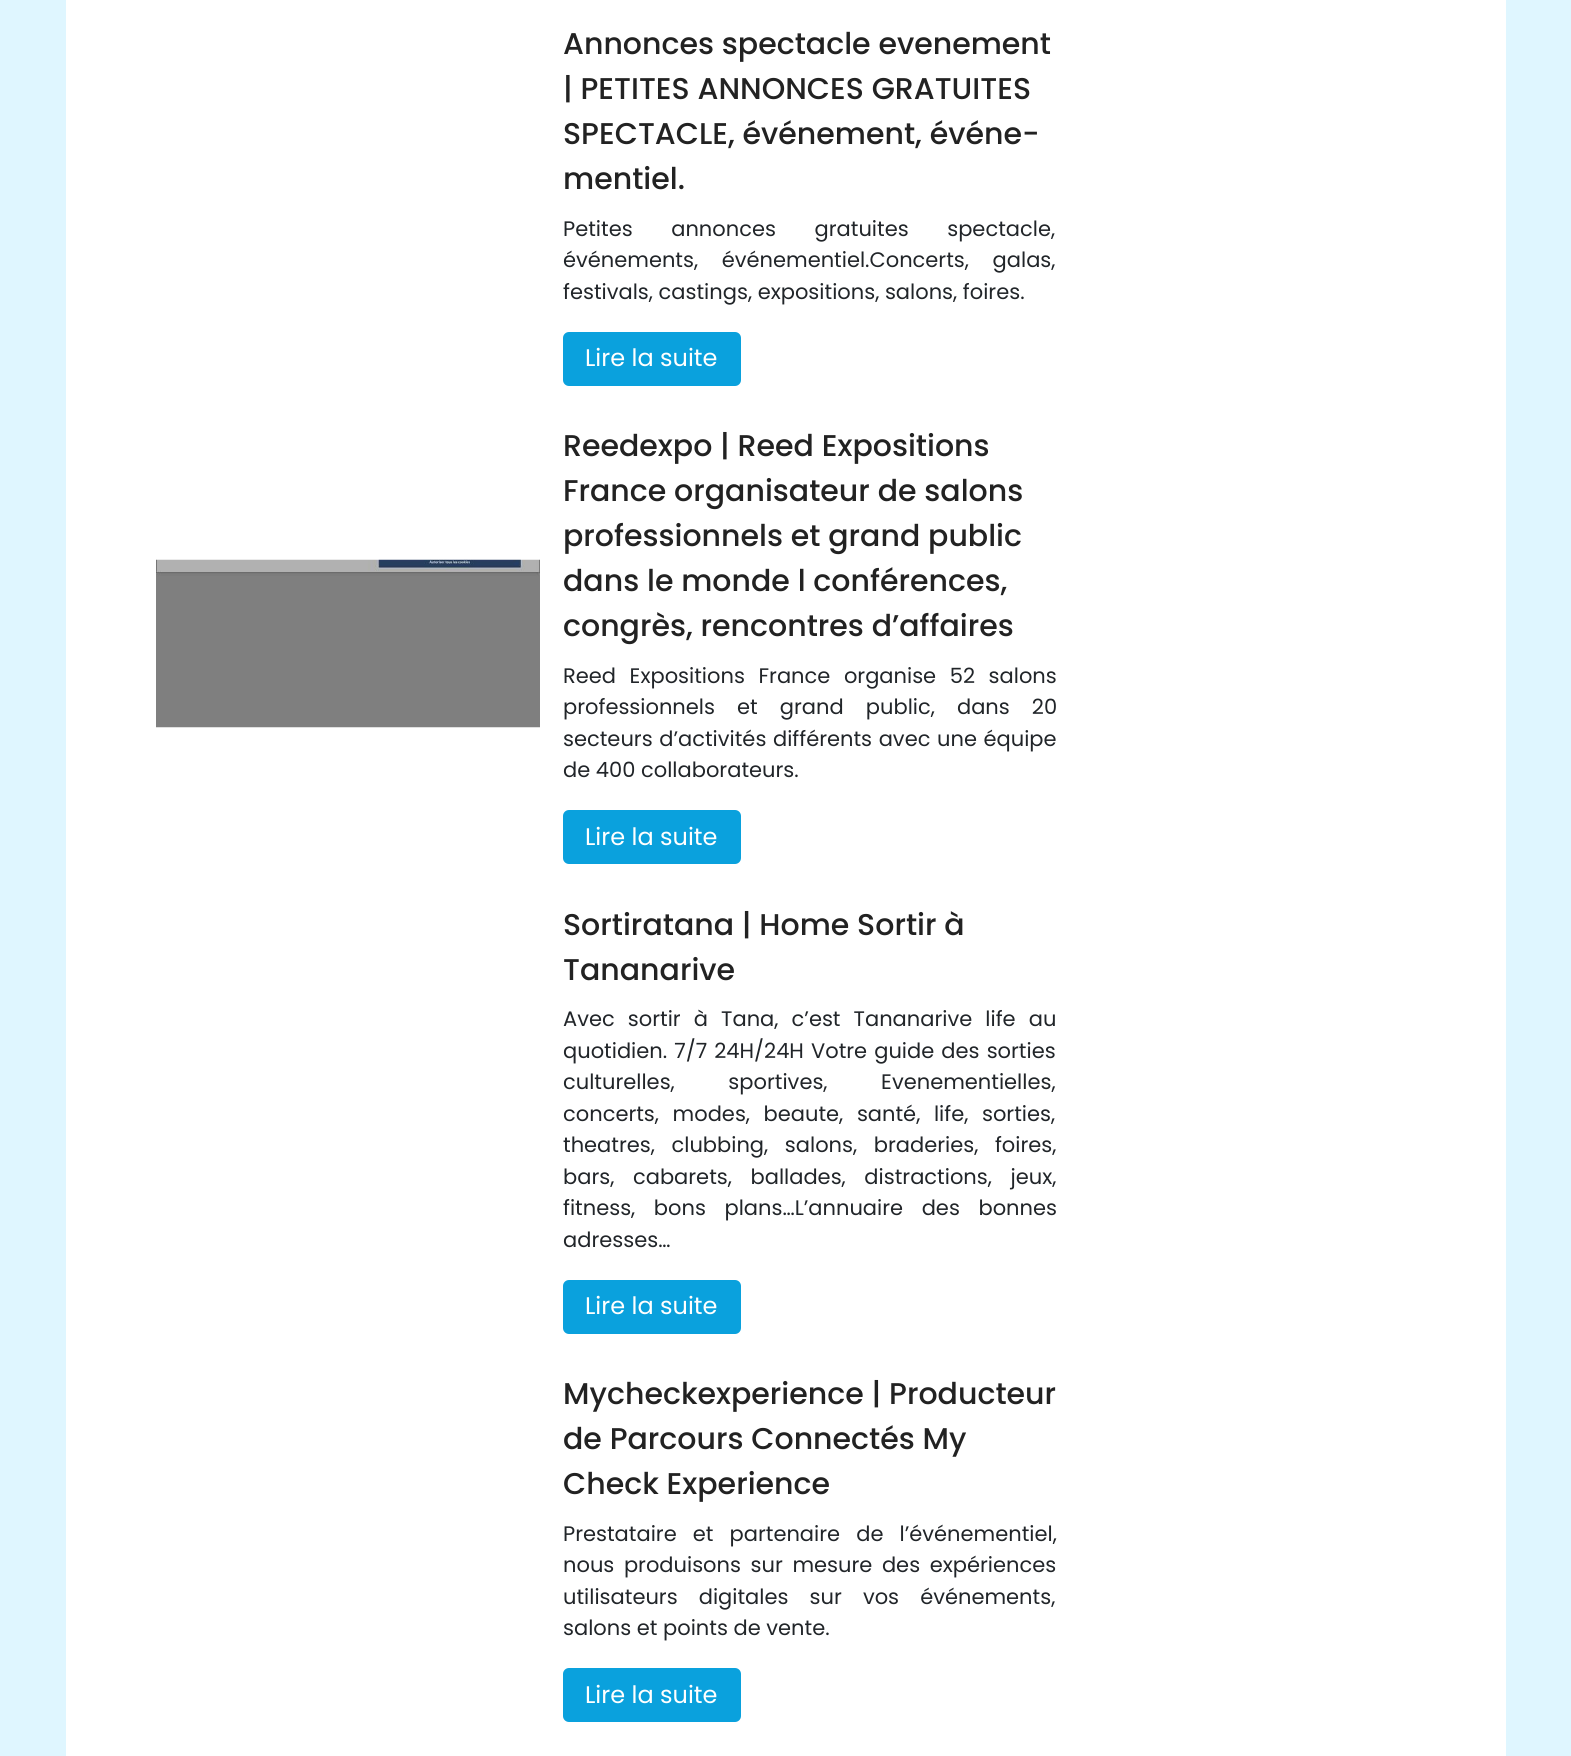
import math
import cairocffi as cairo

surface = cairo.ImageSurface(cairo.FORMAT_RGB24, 1571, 1756)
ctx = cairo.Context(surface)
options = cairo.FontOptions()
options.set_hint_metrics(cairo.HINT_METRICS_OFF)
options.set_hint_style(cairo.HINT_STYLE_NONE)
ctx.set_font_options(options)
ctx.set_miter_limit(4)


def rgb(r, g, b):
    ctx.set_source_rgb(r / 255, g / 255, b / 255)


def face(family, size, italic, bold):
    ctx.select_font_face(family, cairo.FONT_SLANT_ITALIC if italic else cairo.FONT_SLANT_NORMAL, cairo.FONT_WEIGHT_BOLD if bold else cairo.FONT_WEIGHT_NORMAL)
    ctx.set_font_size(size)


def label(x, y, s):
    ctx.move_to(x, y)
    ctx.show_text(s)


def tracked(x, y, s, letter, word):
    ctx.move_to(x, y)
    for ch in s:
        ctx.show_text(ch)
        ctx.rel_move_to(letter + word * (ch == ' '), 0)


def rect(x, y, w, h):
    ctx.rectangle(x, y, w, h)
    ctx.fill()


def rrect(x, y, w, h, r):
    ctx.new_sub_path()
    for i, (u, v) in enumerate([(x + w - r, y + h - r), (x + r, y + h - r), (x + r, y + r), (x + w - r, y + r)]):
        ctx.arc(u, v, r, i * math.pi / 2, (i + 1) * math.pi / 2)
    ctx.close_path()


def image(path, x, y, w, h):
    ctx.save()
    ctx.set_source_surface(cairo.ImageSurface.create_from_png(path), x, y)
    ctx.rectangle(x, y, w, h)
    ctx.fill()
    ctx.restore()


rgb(223, 246, 255)
ctx.paint()
rgb(255, 255, 255)
rect(66, 0, 1440, 1756)
face('Poppins Medium', 30, 0, 0)
rgb(34, 34, 34)
label(563, 54, 'Annonces spectacle evenement')
label(563, 99, '| PETITES ANNONCES GRATUITES')
label(563, 144, 'SPECTACLE, événement, événe-')
label(563, 189, 'mentiel.')
face('Poppins', 21, 0, 0)
rgb(33, 37, 41)
tracked(563, 236, 'Petites annonces gratuites spectacle,', 0, 33)
tracked(563, 267, 'événements, événementiel.Concerts, galas,', 0, 18)
label(563, 299, 'festivals, castings, expositions, salons, foires.')
rgb(10, 161, 221)
rrect(563, 332, 178, 54, 6)
ctx.fill()
face('Poppins', 24, 0, 0)
rgb(255, 255, 255)
label(585, 366, 'Lire la suite')
image('image0.png', 156, 559, 384, 169)
face('Poppins Medium', 30, 0, 0)
rgb(34, 34, 34)
label(563, 456, 'Reedexpo | Reed Expositions')
label(563, 501, 'France organisateur de salons')
label(563, 546, 'professionnels et grand public')
label(563, 591, 'dans le monde l conférences,')
label(563, 636, 'congrès, rencontres d’affaires')
face('Poppins', 21, 0, 0)
rgb(33, 37, 41)
tracked(563, 683, 'Reed Expositions France organise 52 salons', 0, 8)
tracked(563, 714, 'professionnels et grand public, dans 20', 0, 16.5)
tracked(563, 746, 'secteurs d’activités différents avec une équipe', 0, 1)
label(563, 777, 'de 400 collaborateurs.')
rgb(10, 161, 221)
rrect(563, 810, 178, 54, 6)
ctx.fill()
face('Poppins', 24, 0, 0)
rgb(255, 255, 255)
label(585, 845, 'Lire la suite')
face('Poppins Medium', 30, 0, 0)
rgb(34, 34, 34)
label(563, 935, 'Sortiratana | Home Sortir à')
label(563, 980, 'Tananarive')
face('Poppins', 21, 0, 0)
rgb(33, 37, 41)
tracked(563, 1026, 'Avec sortir à Tana, c’est Tananarive life au', 0, 7.5)
tracked(563, 1058, 'quotidien. 7/7 24H/24H Votre guide des sorties', 0, 1.5)
tracked(563, 1089, 'culturelles, sportives, Evenementielles,', 0, 48)
tracked(563, 1121, 'concerts, modes, beaute, santé, life, sorties,', 0, 8)
tracked(563, 1152, 'theatres, clubbing, salons, braderies, foires,', 0, 11)
tracked(563, 1184, 'bars, cabarets, ballades, distractions, jeux,', 0, 13)
tracked(563, 1215, 'fitness, bons plans…L’annuaire des bonnes', 0, 13)
label(563, 1247, 'adresses…')
rgb(10, 161, 221)
rrect(563, 1280, 178, 54, 6)
ctx.fill()
face('Poppins', 24, 0, 0)
rgb(255, 255, 255)
label(585, 1314, 'Lire la suite')
face('Poppins Medium', 30, 0, 0)
rgb(34, 34, 34)
label(563, 1404, 'Mycheckexperience | Producteur')
label(563, 1449, 'de Parcours Connectés My')
label(563, 1494, 'Check Experience')
face('Poppins', 21, 0, 0)
rgb(33, 37, 41)
tracked(563, 1541, 'Prestataire et partenaire de l’événementiel,', 0, 10.5)
tracked(563, 1572, 'nous produisons sur mesure des expériences', 0, 4)
tracked(563, 1604, 'utilisateurs digitales sur vos événements,', 0, 15.5)
label(563, 1635, 'salons et points de vente.')
rgb(10, 161, 221)
rrect(563, 1668, 178, 54, 6)
ctx.fill()
face('Poppins', 24, 0, 0)
rgb(255, 255, 255)
label(585, 1703, 'Lire la suite')
surface.write_to_png('render.png')
